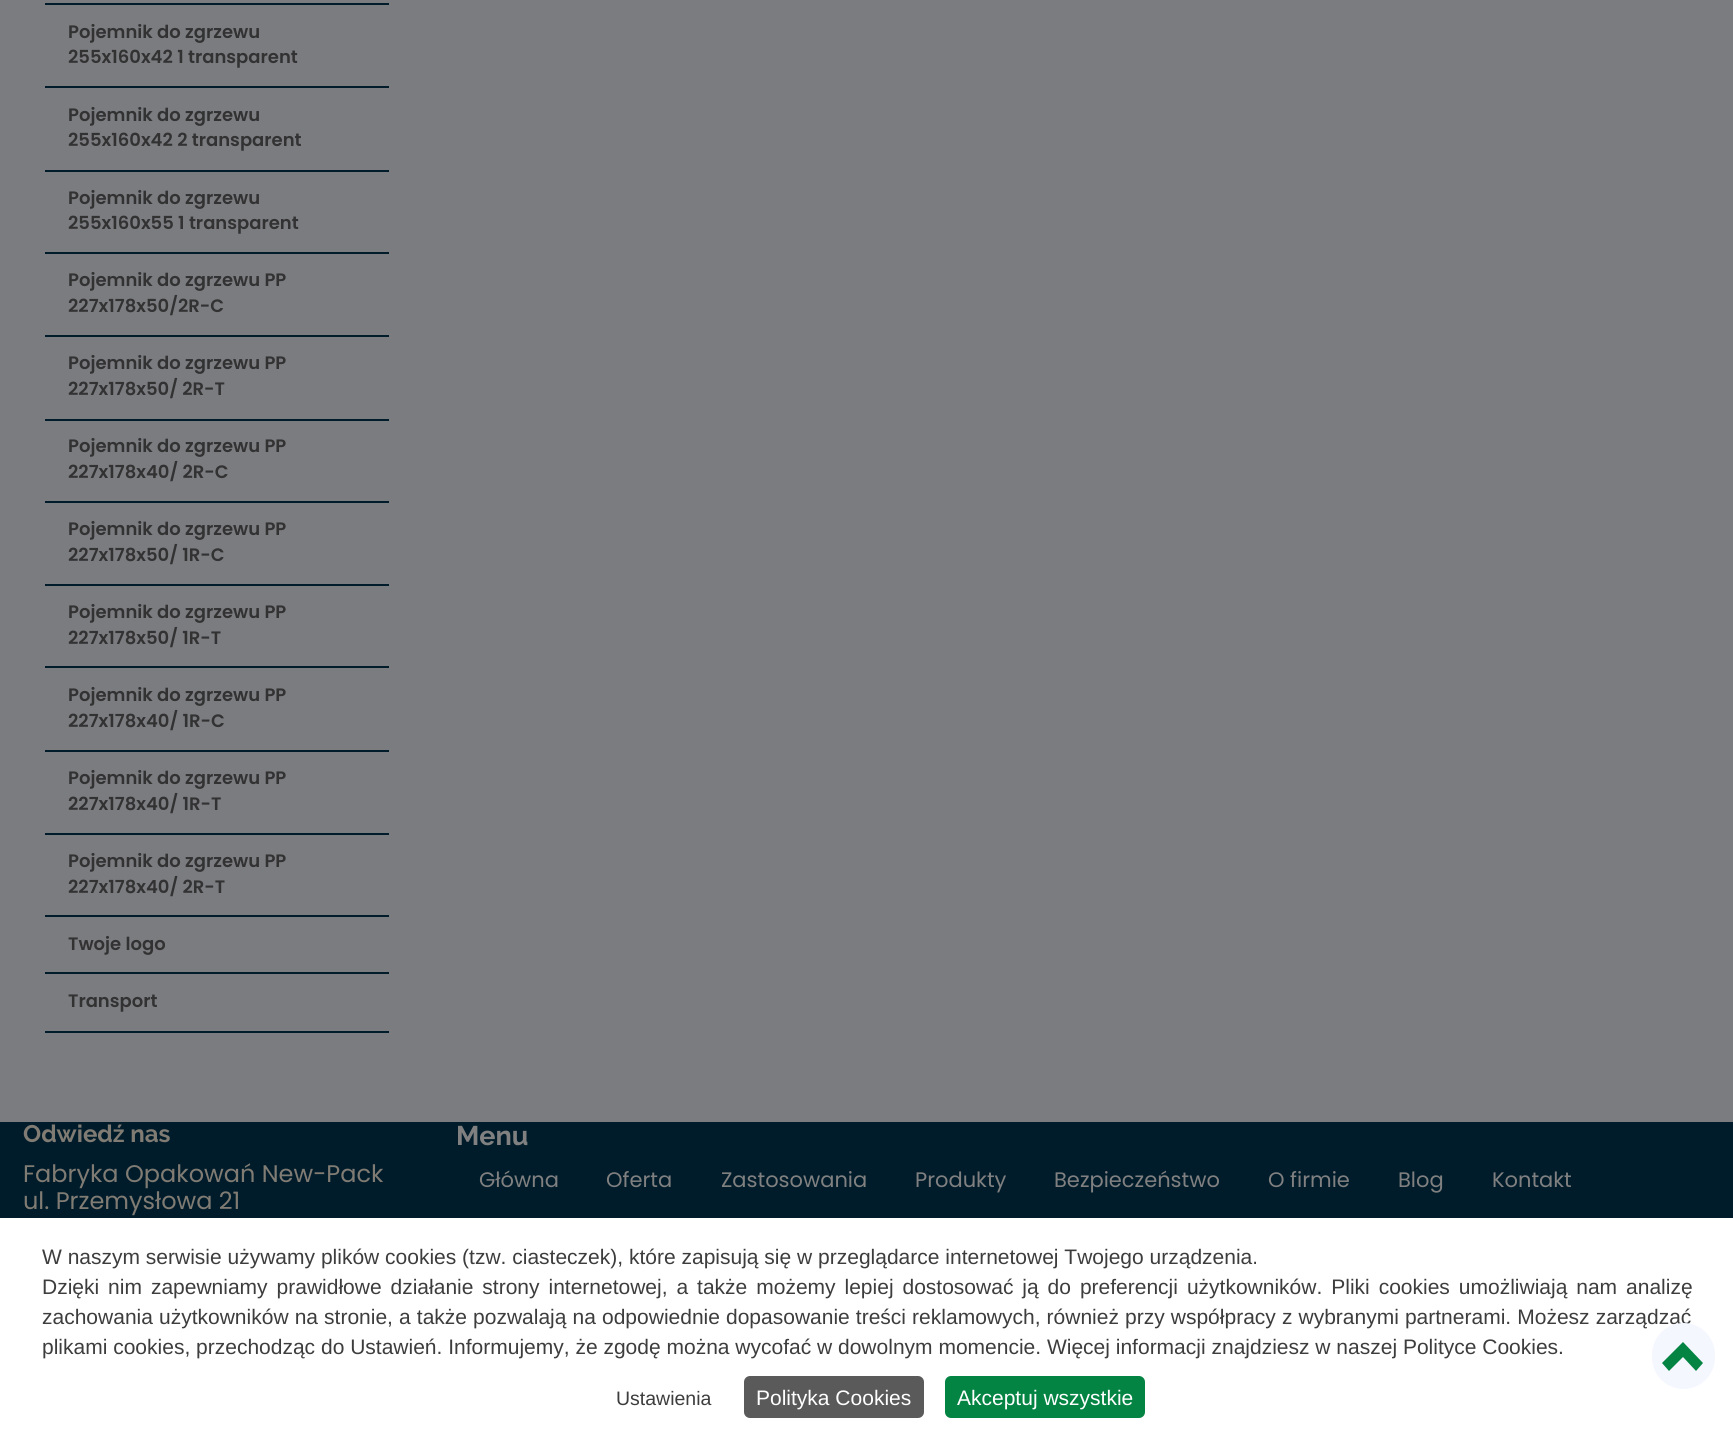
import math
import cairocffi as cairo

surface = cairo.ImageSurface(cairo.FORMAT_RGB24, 1733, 1433)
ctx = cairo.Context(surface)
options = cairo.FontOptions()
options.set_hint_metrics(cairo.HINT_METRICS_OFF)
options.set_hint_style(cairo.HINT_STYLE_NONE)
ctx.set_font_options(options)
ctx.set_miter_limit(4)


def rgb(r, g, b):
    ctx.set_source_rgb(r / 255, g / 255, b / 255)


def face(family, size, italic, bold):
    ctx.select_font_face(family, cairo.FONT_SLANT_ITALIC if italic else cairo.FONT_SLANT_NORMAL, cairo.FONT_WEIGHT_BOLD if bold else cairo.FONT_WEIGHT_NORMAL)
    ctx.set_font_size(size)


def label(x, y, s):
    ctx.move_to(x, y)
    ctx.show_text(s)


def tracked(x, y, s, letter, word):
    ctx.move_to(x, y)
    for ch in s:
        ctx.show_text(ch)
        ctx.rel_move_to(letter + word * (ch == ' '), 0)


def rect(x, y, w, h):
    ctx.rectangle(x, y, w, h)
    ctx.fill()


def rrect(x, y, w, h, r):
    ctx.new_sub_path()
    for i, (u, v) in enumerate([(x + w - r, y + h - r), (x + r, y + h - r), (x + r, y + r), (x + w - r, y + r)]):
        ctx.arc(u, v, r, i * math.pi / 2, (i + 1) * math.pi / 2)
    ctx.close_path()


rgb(123, 124, 128)
ctx.paint()
rgb(0, 28, 43)
rect(45, 3, 344, 2)
rect(45, 86, 344, 2)
face('Poppins SemiBold', 18, 0, 0)
rgb(50, 50, 51)
label(68, 38, 'Pojemnik do zgrzewu')
label(68, 63, '255x160x42 1 transparent')
rgb(0, 28, 43)
rect(45, 170, 344, 2)
rgb(50, 50, 51)
label(68, 121, 'Pojemnik do zgrzewu')
label(68, 146, '255x160x42 2 transparent')
rgb(0, 28, 43)
rect(45, 252, 344, 2)
rgb(50, 50, 51)
label(68, 204, 'Pojemnik do zgrzewu')
label(68, 229, '255x160x55 1 transparent')
rgb(0, 28, 43)
rect(45, 335, 344, 2)
rgb(50, 50, 51)
label(68, 286, 'Pojemnik do zgrzewu PP')
label(68, 312, '227x178x50/2R-C')
rgb(0, 28, 43)
rect(45, 419, 344, 2)
rgb(50, 50, 51)
label(68, 369, 'Pojemnik do zgrzewu PP')
label(68, 395, '227x178x50/ 2R-T')
rgb(0, 28, 43)
rect(45, 501, 344, 2)
rgb(50, 50, 51)
label(68, 452, 'Pojemnik do zgrzewu PP')
label(68, 478, '227x178x40/ 2R-C')
rgb(0, 28, 43)
rect(45, 584, 344, 2)
rgb(50, 50, 51)
label(68, 535, 'Pojemnik do zgrzewu PP')
label(68, 561, '227x178x50/ 1R-C')
rgb(0, 28, 43)
rect(45, 666, 344, 2)
rgb(50, 50, 51)
label(68, 618, 'Pojemnik do zgrzewu PP')
label(68, 644, '227x178x50/ 1R-T')
rgb(0, 28, 43)
rect(45, 750, 344, 2)
rgb(50, 50, 51)
label(68, 701, 'Pojemnik do zgrzewu PP')
label(68, 727, '227x178x40/ 1R-C')
rgb(0, 28, 43)
rect(45, 833, 344, 2)
rgb(50, 50, 51)
label(68, 784, 'Pojemnik do zgrzewu PP')
label(68, 810, '227x178x40/ 1R-T')
rgb(0, 28, 43)
rect(45, 915, 344, 2)
rgb(50, 50, 51)
label(68, 867, 'Pojemnik do zgrzewu PP')
label(68, 893, '227x178x40/ 2R-T')
rgb(0, 28, 43)
rect(45, 972, 344, 2)
rgb(50, 50, 51)
label(68, 950, 'Twoje logo')
rgb(0, 28, 43)
rect(45, 1031, 344, 2)
rgb(50, 50, 51)
label(68, 1007, 'Transport')
rgb(0, 28, 43)
rect(0, 1122, 1733, 96)
face('Raleway', 24, 0, 1)
rgb(128, 123, 115)
label(23, 1142, 'Odwiedź nas')
face('Poppins', 24, 0, 0)
label(23, 1182, 'Fabryka Opakowań New-Pack')
label(23, 1209, 'ul. Przemysłowa 21')
face('Raleway', 27, 0, 1)
rgb(128, 128, 128)
label(456, 1145, 'Menu')
face('Poppins', 21, 0, 0)
label(479, 1187, 'Główna')
label(606, 1187, 'Oferta')
label(721, 1187, 'Zastosowania')
label(915, 1187, 'Produkty')
label(1054, 1187, 'Bezpieczeństwo')
label(1268, 1187, 'O firmie')
label(1398, 1187, 'Blog')
label(1492, 1187, 'Kontakt')
rgb(255, 255, 255)
rect(0, 1218, 1733, 215)
face('Liberation Sans', 21, 0, 0)
rgb(61, 61, 61)
tracked(42, 1324, 'zachowania użytkowników na stronie, a także pozwalają na odpowiednie dopasowanie treści reklamowych, również przy współpracy z wybranymi partnerami. Możesz zarządzać', 0, 0.25)
rgb(245, 247, 255)
rrect(1652, 1323, 63, 66, 31.5)
ctx.fill()
rgb(3, 132, 66)
ctx.new_path()
ctx.move_to(1703, 1363)
ctx.line_to(1696, 1371)
ctx.line_to(1683, 1357)
ctx.line_to(1669, 1371)
ctx.line_to(1662, 1363)
ctx.line_to(1683, 1342)
ctx.close_path()
ctx.fill()
rgb(61, 61, 61)
label(42, 1264, 'W naszym serwisie używamy plików cookies (tzw. ciasteczek), które zapisują się w przeglądarce internetowej Twojego urządzenia.')
tracked(42, 1294, 'Dzięki nim zapewniamy prawidłowe działanie strony internetowej, a także możemy lepiej dostosować ją do preferencji użytkowników. Pliki cookies umożliwiają nam analizę', 0, 3.1)
label(42, 1354, 'plikami cookies, przechodząc do Ustawień. Informujemy, że zgodę można wycofać w dowolnym momencie. Więcej informacji znajdziesz w naszej Polityce Cookies.')
face('Liberation Sans', 19.5, 0, 0)
label(616, 1405, 'Ustawienia')
rgb(90, 90, 90)
rrect(744, 1376, 180, 42, 6)
ctx.fill()
face('Liberation Sans', 21, 0, 0)
rgb(255, 255, 255)
label(756, 1405, 'Polityka Cookies')
rgb(3, 132, 66)
rrect(945, 1376, 200, 42, 6)
ctx.fill()
rgb(255, 255, 255)
label(957, 1405, 'Akceptuj wszystkie')
surface.write_to_png('render.png')
